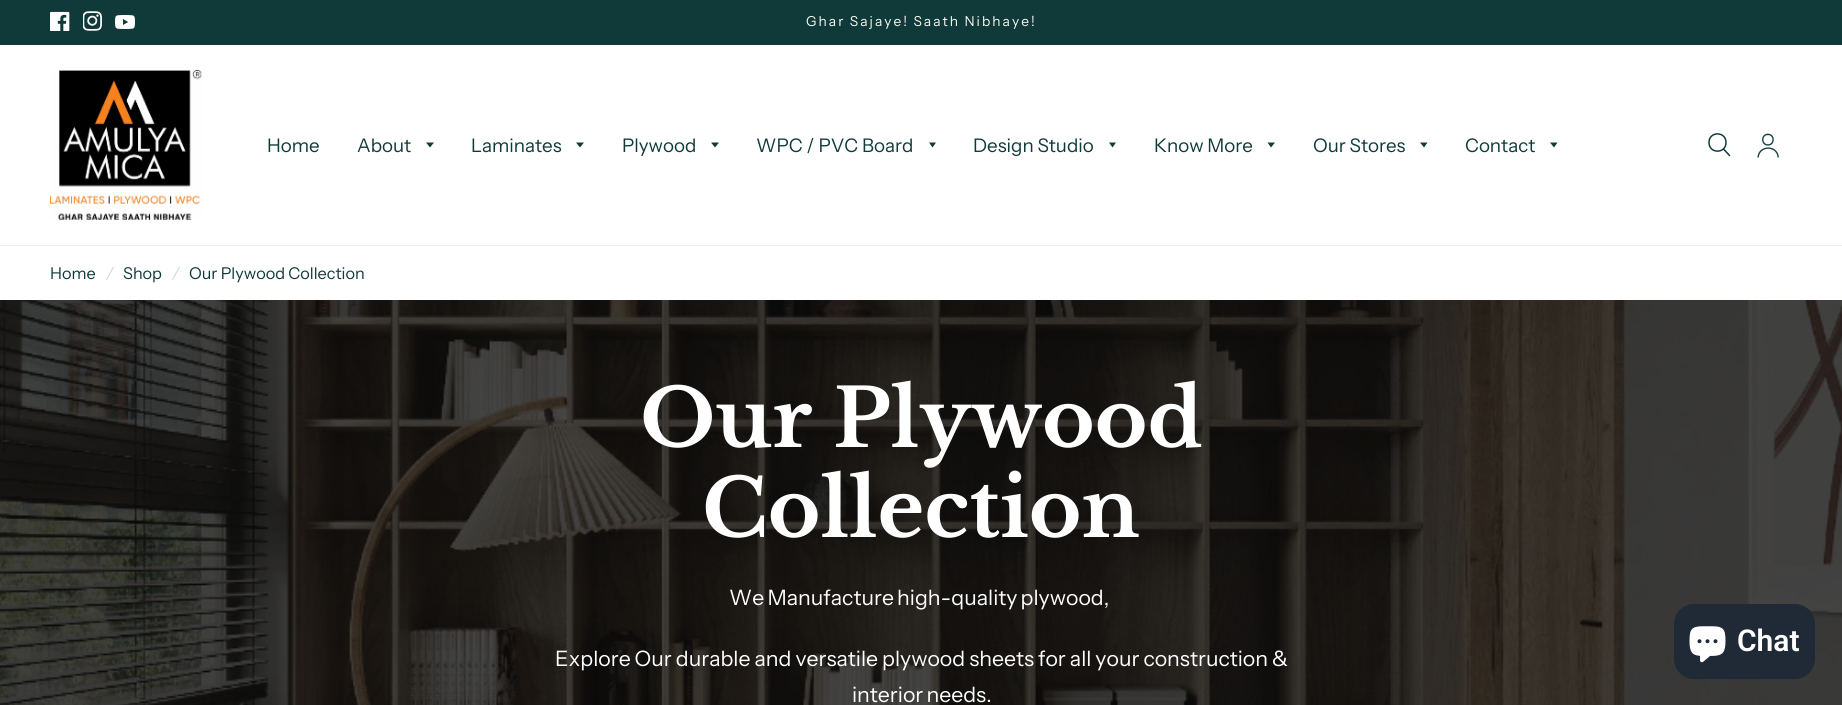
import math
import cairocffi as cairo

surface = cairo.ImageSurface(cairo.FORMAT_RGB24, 1842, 705)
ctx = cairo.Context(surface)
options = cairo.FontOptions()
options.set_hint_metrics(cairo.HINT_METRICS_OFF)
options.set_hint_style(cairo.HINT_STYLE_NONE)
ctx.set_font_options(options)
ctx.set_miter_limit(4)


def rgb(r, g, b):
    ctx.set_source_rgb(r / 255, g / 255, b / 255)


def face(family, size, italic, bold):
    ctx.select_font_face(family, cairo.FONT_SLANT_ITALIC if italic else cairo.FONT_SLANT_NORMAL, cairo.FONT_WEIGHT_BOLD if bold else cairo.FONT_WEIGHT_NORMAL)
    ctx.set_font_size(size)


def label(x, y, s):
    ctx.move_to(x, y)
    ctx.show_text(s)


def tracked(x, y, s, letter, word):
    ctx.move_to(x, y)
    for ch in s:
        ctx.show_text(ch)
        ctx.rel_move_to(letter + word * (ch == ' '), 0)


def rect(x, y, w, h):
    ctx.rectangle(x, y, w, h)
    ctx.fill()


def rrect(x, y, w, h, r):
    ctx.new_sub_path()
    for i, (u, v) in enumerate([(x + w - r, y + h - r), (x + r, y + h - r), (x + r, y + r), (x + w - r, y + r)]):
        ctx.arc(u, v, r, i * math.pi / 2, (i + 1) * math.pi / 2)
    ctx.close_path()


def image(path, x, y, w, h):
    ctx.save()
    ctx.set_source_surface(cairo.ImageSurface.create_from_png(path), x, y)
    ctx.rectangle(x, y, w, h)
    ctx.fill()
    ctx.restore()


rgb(255, 255, 255)
ctx.paint()
rgb(16, 58, 58)
rect(0, 0, 1842, 45)
image('image0.png', 50, 11, 20, 20)
image('image1.png', 83, 11, 19, 20)
image('image2.png', 115, 15, 20, 14)
face('Instrument Sans', 13.75, 0, 0)
rgb(246, 246, 240)
tracked(806, 26, 'Ghar Sajaye! Saath Nibhaye!', 2.05, -0.5)
rgb(238, 238, 238)
rect(0, 245, 1842, 1)
image('image3.png', 50, 70, 152, 150)
face('Instrument Sans', 18.75, 0, 0)
rgb(16, 58, 58)
label(267, 152, 'Home')
label(357, 152, 'About')
ctx.new_path()
ctx.move_to(426, 142.5)
ctx.line_to(434, 142.5)
ctx.line_to(430, 147.5)
ctx.close_path()
ctx.fill()
label(471, 152, 'Laminates')
ctx.new_path()
ctx.move_to(576, 142.5)
ctx.line_to(584, 142.5)
ctx.line_to(580, 147.5)
ctx.close_path()
ctx.fill()
label(622, 152, 'Plywood')
ctx.new_path()
ctx.move_to(711, 142.5)
ctx.line_to(719, 142.5)
ctx.line_to(715, 147.5)
ctx.close_path()
ctx.fill()
label(756, 152, 'WPC / PVC Board')
ctx.new_path()
ctx.move_to(929, 142.5)
ctx.line_to(936, 142.5)
ctx.line_to(932.5, 147.5)
ctx.close_path()
ctx.fill()
label(973, 152, 'Design Studio')
ctx.new_path()
ctx.move_to(1109, 142.5)
ctx.line_to(1116, 142.5)
ctx.line_to(1112.5, 147.5)
ctx.close_path()
ctx.fill()
label(1154, 152, 'Know More')
ctx.new_path()
ctx.move_to(1267.5, 142.5)
ctx.line_to(1275, 142.5)
ctx.line_to(1271, 147.5)
ctx.close_path()
ctx.fill()
label(1313, 152, 'Our Stores')
ctx.new_path()
ctx.move_to(1420, 142.5)
ctx.line_to(1427.5, 142.5)
ctx.line_to(1424, 147.5)
ctx.close_path()
ctx.fill()
label(1465, 152, 'Contact')
ctx.new_path()
ctx.move_to(1550, 142.5)
ctx.line_to(1557.5, 142.5)
ctx.line_to(1554, 147.5)
ctx.close_path()
ctx.fill()
ctx.new_path()
ctx.move_to(1724, 149.5)
ctx.line_to(1729.5, 155.5)
ctx.move_to(1726, 142.5)
ctx.curve_to(1726, 154, 1709, 154, 1709, 142.5)
ctx.curve_to(1709, 131, 1726, 131, 1726, 142.5)
ctx.close_path()
ctx.set_line_width(1.5)
ctx.set_line_cap(cairo.LINE_CAP_ROUND)
ctx.set_line_join(cairo.LINE_JOIN_ROUND)
ctx.stroke()
image('image4.png', 1757, 133, 22, 25)
face('Instrument Sans', 16.25, 0, 0)
label(50, 279, 'Home')
face('Instrument Sans', 16.25, 1, 0)
rgb(207, 216, 216)
label(106, 279, '/')
face('Instrument Sans', 16.25, 0, 0)
rgb(16, 58, 58)
label(123, 279, 'Shop')
face('Instrument Sans', 16.25, 1, 0)
rgb(207, 216, 216)
label(172, 279, '/')
face('Instrument Sans', 16.25, 0, 0)
rgb(16, 58, 58)
label(189, 279, 'Our Plywood Collection')
image('image5.png', 0, 300, 1842, 405)
face('Libre Baskerville', 80, 0, 1)
rgb(255, 255, 255)
label(640, 447, 'Our Plywood')
label(702, 537, 'Collection')
face('Instrument Sans', 21.25, 0, 0)
tracked(729, 605, 'We Manufacture high-quality plywood,', 0, -1)
tracked(555, 666, 'Explore Our durable and versatile plywood sheets for all your construction &', 0, -0.25)
tracked(852, 702, 'interior needs.', 0, -1)
rgb(32, 42, 54)
rrect(1674, 604, 141, 75, 20)
ctx.fill()
image('image6.png', 1689, 626, 37, 37)
face('Roboto SemiBold', 30, 0, 0)
rgb(255, 255, 255)
label(1737, 651, 'Chat')
surface.write_to_png('render.png')
